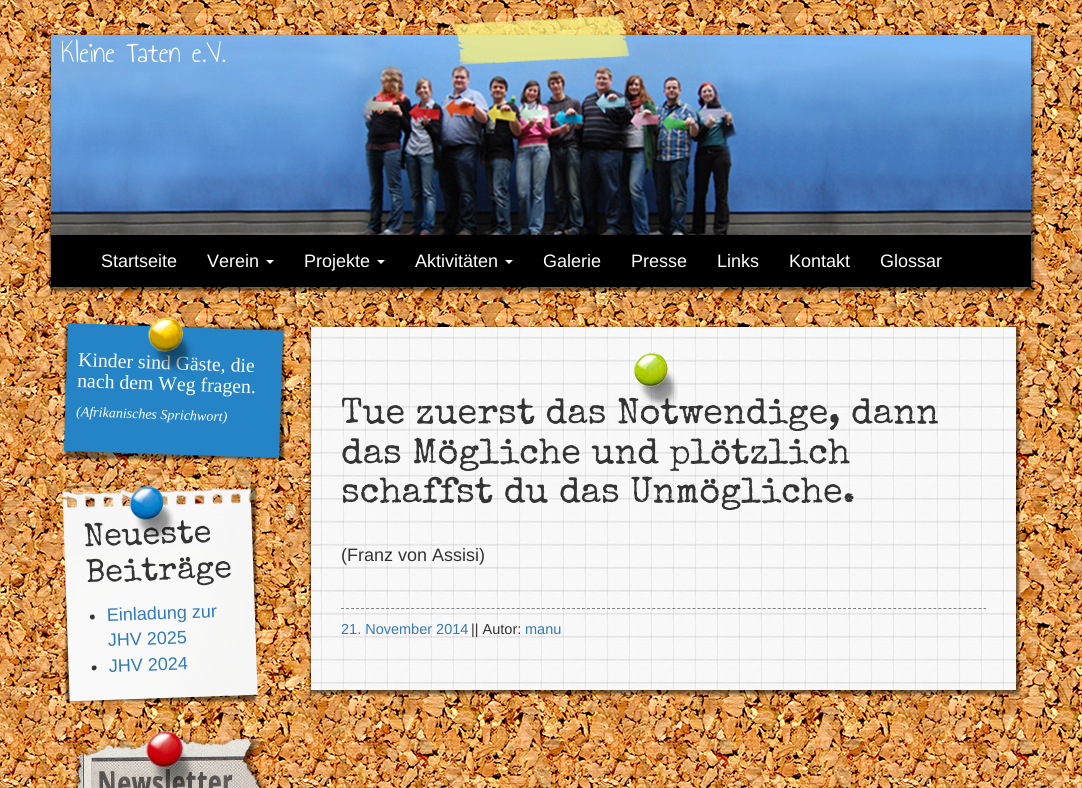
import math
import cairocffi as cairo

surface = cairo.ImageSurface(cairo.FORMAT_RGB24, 1082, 788)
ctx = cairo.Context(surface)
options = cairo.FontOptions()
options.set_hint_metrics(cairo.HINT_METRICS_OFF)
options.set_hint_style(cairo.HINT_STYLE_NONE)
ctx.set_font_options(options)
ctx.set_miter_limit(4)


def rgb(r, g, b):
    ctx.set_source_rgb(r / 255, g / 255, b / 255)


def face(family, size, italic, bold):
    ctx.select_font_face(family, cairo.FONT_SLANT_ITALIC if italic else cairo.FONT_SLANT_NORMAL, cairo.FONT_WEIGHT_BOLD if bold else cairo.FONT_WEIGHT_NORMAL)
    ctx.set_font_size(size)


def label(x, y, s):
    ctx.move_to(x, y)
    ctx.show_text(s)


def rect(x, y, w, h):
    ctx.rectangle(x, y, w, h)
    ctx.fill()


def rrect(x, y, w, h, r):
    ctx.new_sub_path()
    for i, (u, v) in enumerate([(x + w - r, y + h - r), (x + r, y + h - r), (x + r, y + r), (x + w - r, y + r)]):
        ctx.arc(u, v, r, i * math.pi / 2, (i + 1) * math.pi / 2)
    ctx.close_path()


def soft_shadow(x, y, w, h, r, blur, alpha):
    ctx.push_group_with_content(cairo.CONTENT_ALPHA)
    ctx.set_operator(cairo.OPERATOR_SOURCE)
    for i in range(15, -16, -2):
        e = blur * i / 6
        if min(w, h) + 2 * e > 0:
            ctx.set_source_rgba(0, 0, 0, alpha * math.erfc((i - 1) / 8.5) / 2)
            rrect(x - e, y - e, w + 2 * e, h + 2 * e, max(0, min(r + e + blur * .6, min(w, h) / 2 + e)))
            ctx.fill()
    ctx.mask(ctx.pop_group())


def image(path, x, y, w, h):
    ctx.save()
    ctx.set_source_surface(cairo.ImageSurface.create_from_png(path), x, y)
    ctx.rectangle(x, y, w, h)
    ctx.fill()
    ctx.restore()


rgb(255, 255, 255)
ctx.paint()
image('image0.png', 0, 0, 1082, 788)
rgb(0, 0, 0)
soft_shadow(50, 35, 984, 204, 0, 1, 0.5)
image('image2.png', 51, 35, 980, 200)
image('image1.png', 451, 15, 179, 50)
face('Annie Use Your Telescope', 30, 0, 0)
rgb(255, 255, 255)
label(61, 62, 'Kleine Taten e.V.')
rgb(0, 0, 0)
soft_shadow(50, 235, 984, 56, 0, 1, 0.5)
rgb(0, 0, 0)
rect(51, 235, 980, 52)
face('Liberation Sans', 18, 0, 0)
rgb(255, 255, 255)
label(101, 267, 'Startseite')
label(207, 267, 'Verein')
ctx.new_path()
ctx.move_to(266, 260)
ctx.line_to(274, 260)
ctx.line_to(270, 264)
ctx.close_path()
ctx.fill()
label(304, 267, 'Projekte')
ctx.new_path()
ctx.move_to(377, 260)
ctx.line_to(385, 260)
ctx.line_to(381, 264)
ctx.close_path()
ctx.fill()
label(415, 267, 'Aktivitäten')
ctx.new_path()
ctx.move_to(505, 260)
ctx.line_to(513, 260)
ctx.line_to(509, 264)
ctx.close_path()
ctx.fill()
label(543, 267, 'Galerie')
label(631, 267, 'Presse')
label(717, 267, 'Links')
label(789, 267, 'Kontakt')
label(880, 267, 'Glossar')
rgb(0, 0, 0)
soft_shadow(65, 327, 219, 132, 0, 1, 0.5)
rgb(36, 132, 198)
ctx.new_path()
ctx.move_to(68, 323)
ctx.line_to(283, 331)
ctx.line_to(279, 458)
ctx.line_to(64, 451)
ctx.close_path()
ctx.fill()
face('Liberation Serif', 19.75, 0, 0)
rgb(255, 255, 255)
ctx.save()
ctx.translate(78, 366)
ctx.rotate(2 * math.pi / 180)
label(0, 0, 'Kinder sind Gäste, die')
ctx.restore()
image('image3.png', 147, 316, 46, 57)
ctx.save()
ctx.translate(77, 387)
ctx.rotate(2 * math.pi / 180)
label(0, 0, 'nach dem Weg fragen.')
ctx.restore()
face('Liberation Serif', 14, 1, 0)
ctx.save()
ctx.translate(76, 416)
ctx.rotate(2 * math.pi / 180)
label(0, 0, '(Afrikanisches Sprichwort)')
ctx.restore()
ctx.save()
ctx.set_fill_rule(cairo.FILL_RULE_EVEN_ODD)
ctx.new_path()
ctx.move_to(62, 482)
ctx.line_to(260, 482)
ctx.line_to(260, 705)
ctx.line_to(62, 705)
ctx.close_path()
ctx.move_to(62.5, 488)
ctx.line_to(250, 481.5)
ctx.line_to(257.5, 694.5)
ctx.line_to(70, 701)
ctx.close_path()
ctx.clip()
rgb(0, 0, 0)
soft_shadow(66, 486, 190, 215, 0, 1, 0.5)
ctx.restore()
image('image4.png', 62, 483, 196, 219)
face('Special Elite', 32.5, 0, 0)
rgb(51, 51, 51)
ctx.save()
ctx.translate(84, 546)
ctx.rotate(-2 * math.pi / 180)
label(0, 0, 'Neueste')
ctx.restore()
image('image5.png', 128, 485, 47, 56)
ctx.save()
ctx.translate(86, 582)
ctx.rotate(-2 * math.pi / 180)
label(0, 0, 'Beiträge')
ctx.restore()
ctx.new_path()
ctx.move_to(92.5, 614.5)
ctx.curve_to(95.5, 614.5, 95.5, 619.5, 92.5, 619.5)
ctx.curve_to(89, 619.5, 89, 614.5, 92.5, 614.5)
ctx.close_path()
ctx.fill()
face('Liberation Sans', 18, 0, 0)
rgb(51, 122, 183)
ctx.save()
ctx.translate(107, 621)
ctx.rotate(-2 * math.pi / 180)
label(0, 0, 'Einladung zur')
ctx.restore()
ctx.save()
ctx.translate(108, 646)
ctx.rotate(-2 * math.pi / 180)
label(0, 0, 'JHV 2025')
ctx.restore()
rgb(51, 51, 51)
ctx.new_path()
ctx.move_to(94, 665.5)
ctx.curve_to(97.5, 665, 97.5, 670, 94, 670.5)
ctx.curve_to(91, 670.5, 91, 665.5, 94, 665.5)
ctx.close_path()
ctx.fill()
rgb(51, 122, 183)
ctx.save()
ctx.translate(109, 672)
ctx.rotate(-2 * math.pi / 180)
label(0, 0, 'JHV 2024')
ctx.restore()
image('image6.png', 73, 730, 195, 58)
rgb(0, 0, 0)
soft_shadow(310, 327, 709, 367, 0, 1, 0.5)
image('image7.png', 311, 327, 705, 363)
face('Special Elite', 36, 0, 0)
rgb(51, 51, 51)
label(341, 423, 'Tue zuerst das Notwendige, dann')
image('image8.png', 633, 352, 45, 56)
label(341, 463, 'das Mögliche und plötzlich')
label(341, 502, 'schaffst du das Unmögliche.')
face('Liberation Sans', 18, 0, 0)
label(341, 561, '(Franz von Assisi)')
ctx.new_path()
ctx.move_to(341, 608.5)
ctx.line_to(986, 608.5)
rgb(128, 128, 128)
ctx.set_line_width(1)
ctx.set_dash([3, 2.02])
ctx.stroke()
face('Liberation Sans', 14.5, 0, 0)
rgb(51, 122, 183)
label(341, 634, '21. November 2014')
rgb(51, 51, 51)
label(471, 634, '|| Autor:')
rgb(51, 122, 183)
label(525, 634, 'manu')
surface.write_to_png('render.png')
